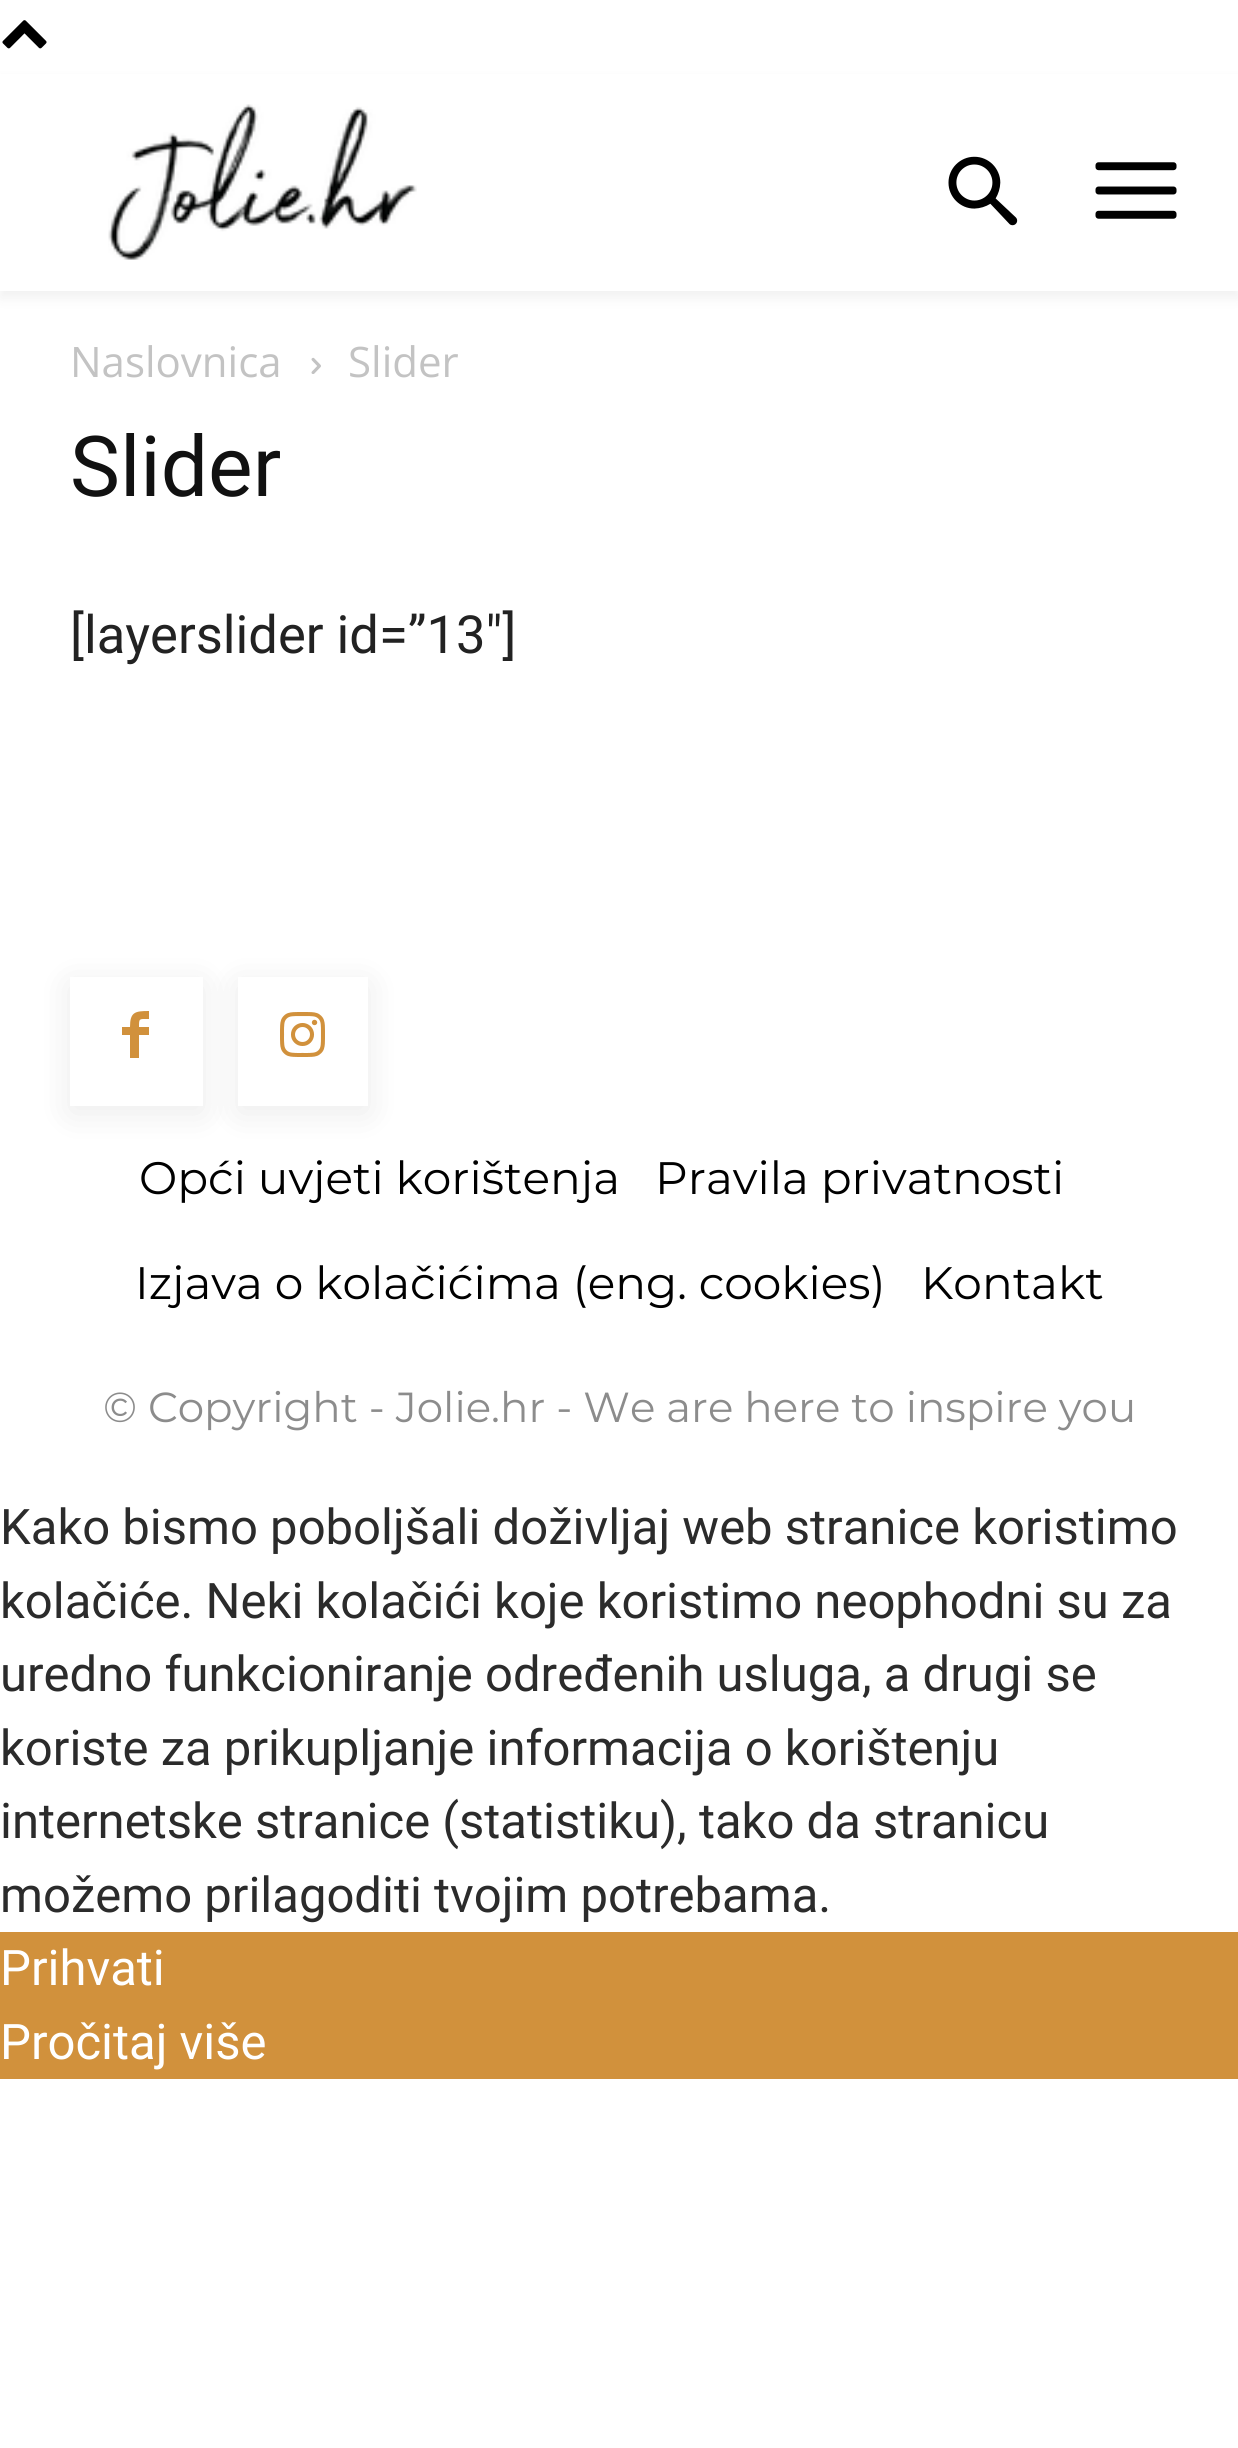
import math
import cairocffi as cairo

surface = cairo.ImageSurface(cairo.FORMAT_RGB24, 1238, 2448)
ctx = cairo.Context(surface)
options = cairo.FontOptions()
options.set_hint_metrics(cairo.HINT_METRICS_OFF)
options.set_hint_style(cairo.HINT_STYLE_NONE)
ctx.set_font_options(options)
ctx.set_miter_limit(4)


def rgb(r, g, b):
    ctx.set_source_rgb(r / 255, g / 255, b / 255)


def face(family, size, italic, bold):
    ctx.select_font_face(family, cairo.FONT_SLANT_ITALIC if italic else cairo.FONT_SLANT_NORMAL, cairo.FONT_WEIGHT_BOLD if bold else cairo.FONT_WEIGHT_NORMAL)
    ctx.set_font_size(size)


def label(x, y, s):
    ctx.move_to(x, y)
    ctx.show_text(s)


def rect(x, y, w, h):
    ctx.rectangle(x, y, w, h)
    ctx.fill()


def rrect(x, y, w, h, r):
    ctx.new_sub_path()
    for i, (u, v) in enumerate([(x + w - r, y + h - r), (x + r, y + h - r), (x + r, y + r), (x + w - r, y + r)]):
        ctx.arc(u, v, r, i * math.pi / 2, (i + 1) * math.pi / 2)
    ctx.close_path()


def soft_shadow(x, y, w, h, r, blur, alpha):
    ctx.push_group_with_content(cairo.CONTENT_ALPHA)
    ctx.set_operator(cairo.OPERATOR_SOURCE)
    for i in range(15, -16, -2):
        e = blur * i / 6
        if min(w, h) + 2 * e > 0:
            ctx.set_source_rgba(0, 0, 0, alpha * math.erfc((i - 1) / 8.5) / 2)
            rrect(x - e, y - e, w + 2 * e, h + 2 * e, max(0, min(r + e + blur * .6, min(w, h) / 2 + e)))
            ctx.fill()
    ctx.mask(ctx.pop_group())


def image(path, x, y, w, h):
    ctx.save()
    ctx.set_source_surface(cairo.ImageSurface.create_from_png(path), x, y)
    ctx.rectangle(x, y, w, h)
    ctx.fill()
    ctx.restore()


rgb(255, 255, 255)
ctx.paint()
image('image0.png', 2, 20, 45, 29)
image('image1.png', 108, 104, 309, 156)
image('image2.png', 948, 156, 70, 70)
image('image3.png', 1095, 162, 82, 57)
ctx.save()
ctx.set_fill_rule(cairo.FILL_RULE_EVEN_ODD)
ctx.new_path()
ctx.move_to(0, 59)
ctx.line_to(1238, 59)
ctx.line_to(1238, 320)
ctx.line_to(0, 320)
ctx.close_path()
ctx.move_to(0, 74)
ctx.line_to(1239, 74)
ctx.line_to(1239, 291)
ctx.line_to(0, 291)
ctx.close_path()
ctx.clip()
rgb(0, 0, 0)
soft_shadow(0, 81, 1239, 217, 0, 7, 0.06)
ctx.restore()
face('Open Sans', 42, 0, 0)
rgb(195, 195, 195)
label(70, 377, 'Naslovnica')
image('image4.png', 311, 357, 10, 17)
label(348, 377, 'Slider')
face('Roboto', 84, 0, 0)
rgb(17, 17, 17)
label(70, 496, 'Slider')
face('Roboto', 52.5, 0, 0)
rgb(34, 34, 34)
label(70, 653, '[layerslider id=”13″]')
ctx.save()
ctx.set_fill_rule(cairo.FILL_RULE_EVEN_ODD)
ctx.new_path()
ctx.move_to(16, 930)
ctx.line_to(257, 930)
ctx.line_to(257, 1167)
ctx.line_to(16, 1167)
ctx.close_path()
ctx.move_to(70, 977)
ctx.line_to(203, 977)
ctx.line_to(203, 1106)
ctx.line_to(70, 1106)
ctx.close_path()
ctx.clip()
rgb(0, 0, 0)
soft_shadow(70, 984, 133, 129, 0, 17.5, 0.08)
ctx.restore()
rgb(209, 145, 60)
ctx.new_path()
ctx.move_to(149, 1019)
ctx.curve_to(139, 1019, 139, 1018, 139, 1027)
ctx.line_to(149, 1027)
ctx.line_to(149, 1035)
ctx.line_to(139, 1035)
ctx.line_to(139, 1058)
ctx.line_to(130, 1058)
ctx.line_to(130, 1035)
ctx.line_to(122, 1035)
ctx.line_to(122, 1027)
ctx.line_to(130, 1027)
ctx.curve_to(130, 1012, 135, 1011, 149, 1011)
ctx.close_path()
ctx.fill()
ctx.save()
ctx.set_fill_rule(cairo.FILL_RULE_EVEN_ODD)
ctx.new_path()
ctx.move_to(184, 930)
ctx.line_to(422, 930)
ctx.line_to(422, 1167)
ctx.line_to(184, 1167)
ctx.close_path()
ctx.move_to(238, 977)
ctx.line_to(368, 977)
ctx.line_to(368, 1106)
ctx.line_to(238, 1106)
ctx.close_path()
ctx.clip()
rgb(0, 0, 0)
soft_shadow(238, 984, 130, 129, 0, 17.5, 0.08)
ctx.restore()
image('image5.png', 280, 1012, 45, 45)
face('Montserrat', 45.5, 0, 0)
rgb(0, 0, 0)
label(139, 1194, 'Opći uvjeti korištenja')
label(655, 1194, 'Pravila privatnosti')
label(135, 1299, 'Izjava o kolačićima (eng. cookies)')
label(921, 1299, 'Kontakt')
face('Montserrat', 42, 0, 0)
rgb(140, 140, 140)
label(103, 1422, '© Copyright - Jolie.hr - We are here to inspire you')
face('Roboto', 49, 0, 0)
rgb(43, 43, 43)
label(0, 1544, 'Kako bismo poboljšali doživljaj web stranice koristimo')
label(0, 1618, 'kolačiće. Neki kolačići koje koristimo neophodni su za')
label(0, 1691, 'uredno funkcioniranje određenih usluga, a drugi se')
label(0, 1765, 'koriste za prikupljanje informacija o korištenju')
label(0, 1838, 'internetske stranice (statistiku), tako da stranicu')
label(0, 1912, 'možemo prilagoditi tvojim potrebama.')
rgb(209, 145, 60)
rect(0, 1932, 1238, 147)
rgb(255, 255, 255)
label(0, 1985, 'Prihvati')
label(0, 2059, 'Pročitaj više')
surface.write_to_png('render.png')
